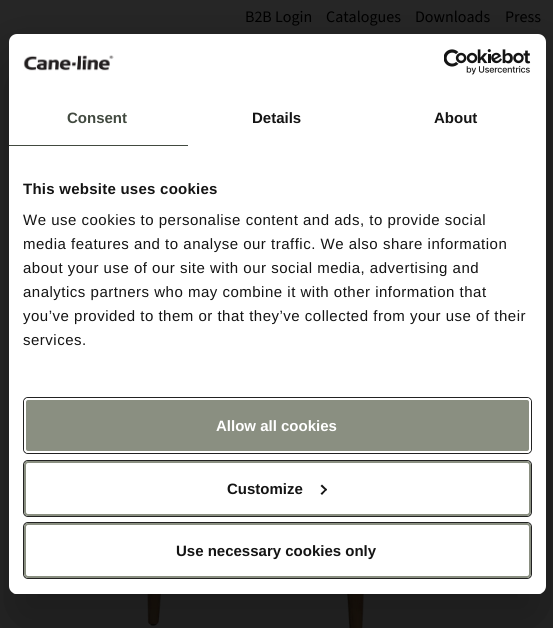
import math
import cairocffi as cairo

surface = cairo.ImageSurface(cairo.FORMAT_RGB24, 553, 628)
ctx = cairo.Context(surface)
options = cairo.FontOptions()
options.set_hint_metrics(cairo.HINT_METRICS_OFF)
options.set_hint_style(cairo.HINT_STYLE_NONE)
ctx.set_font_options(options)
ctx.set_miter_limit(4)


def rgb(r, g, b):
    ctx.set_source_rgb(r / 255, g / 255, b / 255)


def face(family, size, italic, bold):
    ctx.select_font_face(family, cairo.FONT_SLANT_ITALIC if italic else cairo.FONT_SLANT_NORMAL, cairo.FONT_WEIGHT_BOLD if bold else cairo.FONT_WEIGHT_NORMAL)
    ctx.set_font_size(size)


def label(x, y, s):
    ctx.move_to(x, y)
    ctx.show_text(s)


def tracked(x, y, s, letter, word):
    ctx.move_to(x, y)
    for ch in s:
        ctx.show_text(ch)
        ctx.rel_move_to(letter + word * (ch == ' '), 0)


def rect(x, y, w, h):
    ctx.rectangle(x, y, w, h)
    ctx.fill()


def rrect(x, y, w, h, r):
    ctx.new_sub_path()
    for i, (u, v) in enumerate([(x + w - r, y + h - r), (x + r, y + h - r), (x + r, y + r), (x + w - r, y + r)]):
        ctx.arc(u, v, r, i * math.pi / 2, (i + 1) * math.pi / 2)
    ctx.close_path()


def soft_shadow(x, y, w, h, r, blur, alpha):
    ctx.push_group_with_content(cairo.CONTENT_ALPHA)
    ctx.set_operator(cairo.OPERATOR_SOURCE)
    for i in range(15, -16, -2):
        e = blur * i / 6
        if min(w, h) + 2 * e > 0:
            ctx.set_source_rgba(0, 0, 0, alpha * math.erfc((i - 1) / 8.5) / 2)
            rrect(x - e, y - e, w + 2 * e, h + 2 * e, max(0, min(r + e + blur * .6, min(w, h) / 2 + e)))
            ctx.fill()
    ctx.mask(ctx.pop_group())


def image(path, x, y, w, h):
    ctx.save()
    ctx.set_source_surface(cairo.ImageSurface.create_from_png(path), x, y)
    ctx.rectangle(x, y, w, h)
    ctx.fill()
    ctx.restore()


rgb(38, 38, 38)
ctx.paint()
face('Source Sans Pro', 16, 0, 0)
rgb(0, 0, 0)
label(245, 22, 'B2B Login')
label(326, 22, 'Catalogues')
label(415, 22, 'Downloads')
label(505, 22, 'Press')
image('image2.png', 147, 594, 217, 34)
rgb(0, 0, 0)
soft_shadow(9, 66, 537, 560, 8, 34, 0.3)
rgb(255, 255, 255)
rrect(9, 34, 537, 560, 8)
ctx.fill()
image('image0.png', 23, 55, 91, 16)
image('image1.png', 444, 49, 87, 26)
rgb(66, 74, 64)
rect(9, 145, 179, 1)
face('Liberation Sans', 15, 0, 1)
label(67, 123, 'Consent')
rgb(20, 20, 20)
label(252, 123, 'Details')
label(434, 123, 'About')
tracked(23, 194, 'This website uses cookies', 0.25, 0)
face('Liberation Sans', 15, 0, 0)
tracked(23, 225, 'We use cookies to personalise content and ads, to provide social', 0.5, 0)
tracked(23, 249, 'media features and to analyse our traffic. We also share information', 0.5, 0)
tracked(23, 273, 'about your use of our site with our social media, advertising and', 0.5, 0)
tracked(23, 297, 'analytics partners who may combine it with other information that', 0.5, 0)
tracked(23, 321, 'you’ve provided to them or that they’ve collected from your use of their', 0.5, 0)
tracked(23, 345, 'services.', 0.5, 0)
ctx.save()
rrect(9, 34, 537, 560, 8)
ctx.clip()
rgb(255, 255, 255)
rect(9, 593, 537, 1)
ctx.restore()
rrect(23.5, 397.5, 508, 56, 4.5)
rgb(34, 34, 34)
ctx.set_line_width(1)
ctx.stroke()
rgb(138, 143, 129)
rrect(25, 399, 505, 53, 3)
ctx.fill_preserve()
rgb(255, 255, 255)
ctx.set_line_width(2)
ctx.stroke()
face('Liberation Sans', 15, 0, 1)
label(216, 431, 'Allow all cookies')
rrect(23.5, 460.5, 508, 56, 4.5)
rgb(34, 34, 34)
ctx.set_line_width(1)
ctx.stroke()
rgb(255, 255, 255)
rrect(25, 462, 505, 53, 3)
ctx.fill_preserve()
rgb(138, 143, 129)
ctx.set_line_width(2)
ctx.stroke()
rgb(20, 20, 20)
label(227, 494, 'Customize')
ctx.new_path()
ctx.move_to(322, 484.5)
ctx.line_to(327, 489.5)
ctx.line_to(326, 491)
ctx.line_to(320.5, 486)
ctx.close_path()
ctx.fill()
ctx.new_path()
ctx.move_to(326, 488.5)
ctx.line_to(327, 489.5)
ctx.line_to(322, 495)
ctx.line_to(320.5, 493.5)
ctx.close_path()
ctx.fill()
rrect(23.5, 522.5, 508, 56, 4.5)
rgb(34, 34, 34)
ctx.set_line_width(1)
ctx.stroke()
rgb(255, 255, 255)
rrect(25, 524, 505, 53, 3)
ctx.fill_preserve()
rgb(138, 143, 129)
ctx.set_line_width(2)
ctx.stroke()
rgb(20, 20, 20)
label(176, 556, 'Use necessary cookies only')
surface.write_to_png('render.png')
